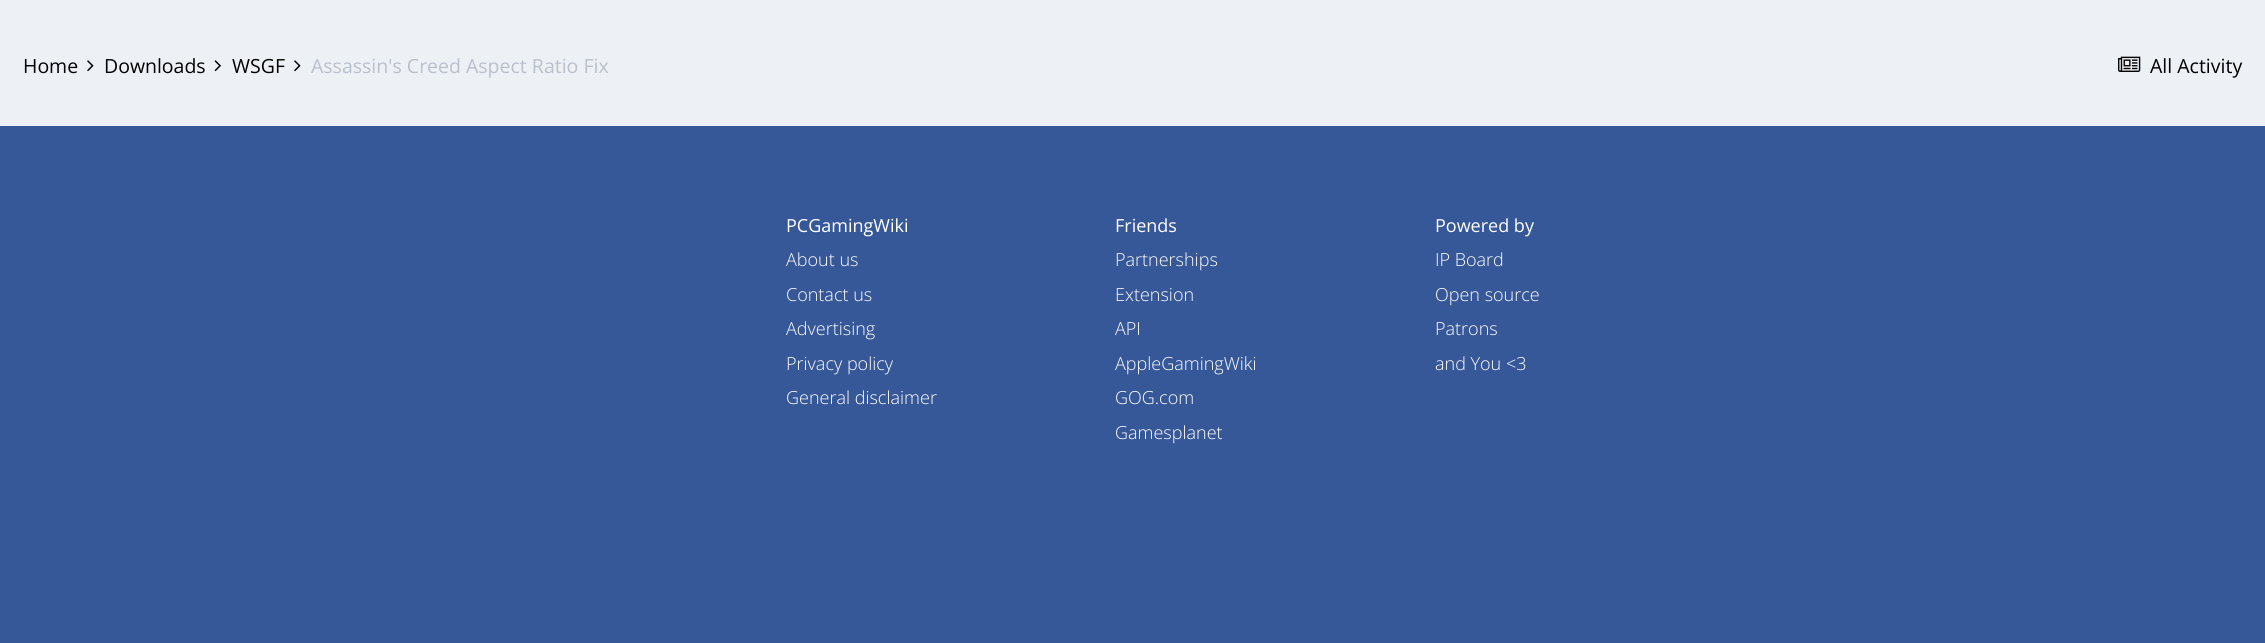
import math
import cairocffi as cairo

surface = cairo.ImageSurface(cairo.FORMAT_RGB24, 2265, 643)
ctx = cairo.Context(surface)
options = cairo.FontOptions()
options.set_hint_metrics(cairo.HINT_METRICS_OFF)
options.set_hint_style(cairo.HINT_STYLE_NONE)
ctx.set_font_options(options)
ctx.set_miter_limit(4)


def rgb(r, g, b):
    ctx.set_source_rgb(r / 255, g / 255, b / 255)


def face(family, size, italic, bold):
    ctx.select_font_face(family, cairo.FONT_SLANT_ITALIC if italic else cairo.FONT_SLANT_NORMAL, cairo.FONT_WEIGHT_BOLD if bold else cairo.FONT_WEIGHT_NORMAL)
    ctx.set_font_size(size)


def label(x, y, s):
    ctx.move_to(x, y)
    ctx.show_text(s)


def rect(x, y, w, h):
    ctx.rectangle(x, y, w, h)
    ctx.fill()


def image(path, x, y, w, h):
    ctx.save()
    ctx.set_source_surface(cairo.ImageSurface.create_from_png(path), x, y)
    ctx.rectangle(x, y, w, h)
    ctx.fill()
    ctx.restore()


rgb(237, 240, 244)
ctx.paint()
face('Open Sans', 19.5, 0, 0)
rgb(0, 0, 0)
label(23, 73, 'Home')
image('image0.png', 87, 60, 7, 12)
label(104, 73, 'Downloads')
image('image1.png', 214, 60, 7, 12)
label(232, 73, 'WSGF')
image('image0.png', 294, 60, 7, 12)
rgb(185, 193, 205)
label(311, 73, 'Assassin\'s Creed Aspect Ratio Fix')
image('image2.png', 2118, 56, 23, 16)
rgb(0, 0, 0)
label(2150, 73, 'All Activity')
rgb(55, 88, 152)
rect(0, 126, 2265, 517)
face('Open Sans', 18, 0, 0)
rgb(255, 255, 255)
label(786, 232, 'PCGamingWiki')
face('Open Sans Light', 18, 0, 0)
label(786, 266, 'About us')
label(786, 301, 'Contact us')
label(786, 335, 'Advertising')
label(786, 370, 'Privacy policy')
label(786, 404, 'General disclaimer')
face('Open Sans', 18, 0, 0)
label(1115, 232, 'Friends')
face('Open Sans Light', 18, 0, 0)
label(1115, 266, 'Partnerships')
label(1115, 301, 'Extension')
label(1115, 335, 'API')
label(1115, 370, 'AppleGamingWiki')
label(1115, 404, 'GOG.com')
label(1115, 439, 'Gamesplanet')
face('Open Sans', 18, 0, 0)
label(1435, 232, 'Powered by')
face('Open Sans Light', 18, 0, 0)
label(1435, 266, 'IP Board')
label(1435, 301, 'Open source')
label(1435, 335, 'Patrons')
label(1435, 370, 'and You <3')
surface.write_to_png('render.png')
